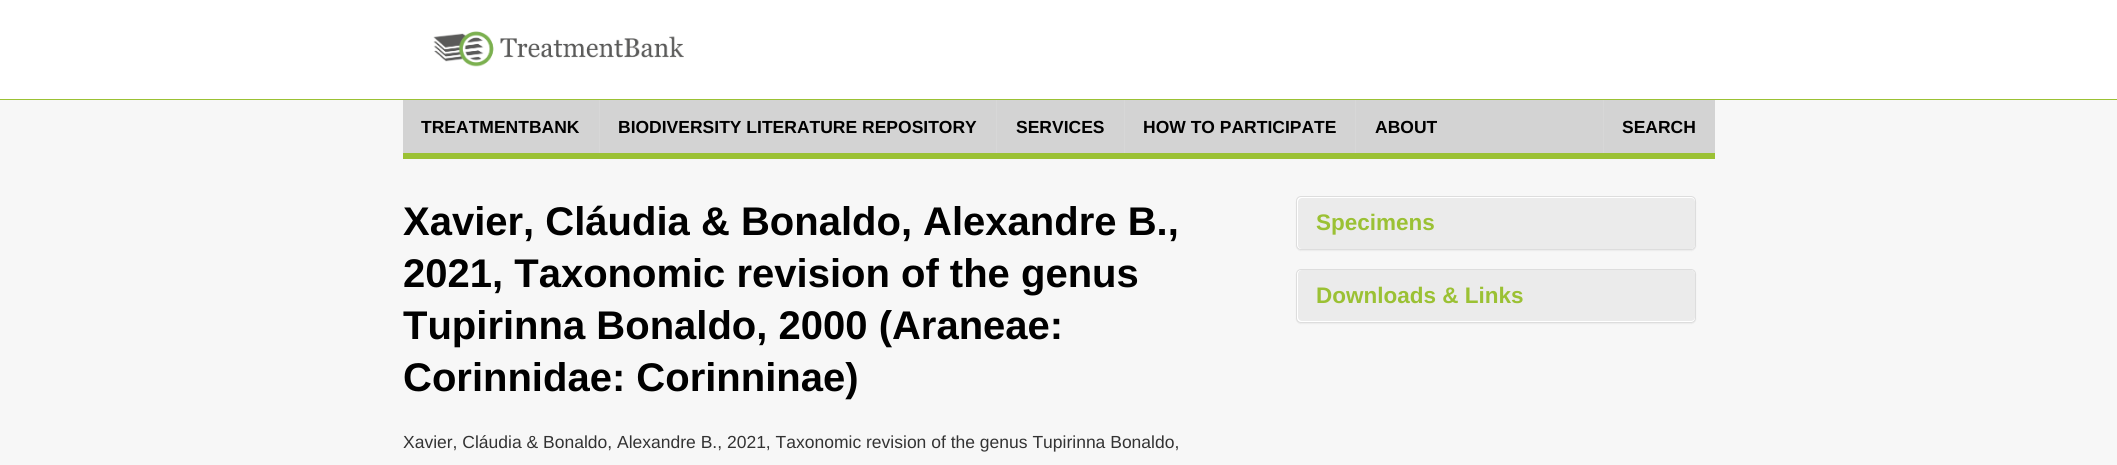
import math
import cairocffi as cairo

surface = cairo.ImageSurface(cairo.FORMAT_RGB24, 2117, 465)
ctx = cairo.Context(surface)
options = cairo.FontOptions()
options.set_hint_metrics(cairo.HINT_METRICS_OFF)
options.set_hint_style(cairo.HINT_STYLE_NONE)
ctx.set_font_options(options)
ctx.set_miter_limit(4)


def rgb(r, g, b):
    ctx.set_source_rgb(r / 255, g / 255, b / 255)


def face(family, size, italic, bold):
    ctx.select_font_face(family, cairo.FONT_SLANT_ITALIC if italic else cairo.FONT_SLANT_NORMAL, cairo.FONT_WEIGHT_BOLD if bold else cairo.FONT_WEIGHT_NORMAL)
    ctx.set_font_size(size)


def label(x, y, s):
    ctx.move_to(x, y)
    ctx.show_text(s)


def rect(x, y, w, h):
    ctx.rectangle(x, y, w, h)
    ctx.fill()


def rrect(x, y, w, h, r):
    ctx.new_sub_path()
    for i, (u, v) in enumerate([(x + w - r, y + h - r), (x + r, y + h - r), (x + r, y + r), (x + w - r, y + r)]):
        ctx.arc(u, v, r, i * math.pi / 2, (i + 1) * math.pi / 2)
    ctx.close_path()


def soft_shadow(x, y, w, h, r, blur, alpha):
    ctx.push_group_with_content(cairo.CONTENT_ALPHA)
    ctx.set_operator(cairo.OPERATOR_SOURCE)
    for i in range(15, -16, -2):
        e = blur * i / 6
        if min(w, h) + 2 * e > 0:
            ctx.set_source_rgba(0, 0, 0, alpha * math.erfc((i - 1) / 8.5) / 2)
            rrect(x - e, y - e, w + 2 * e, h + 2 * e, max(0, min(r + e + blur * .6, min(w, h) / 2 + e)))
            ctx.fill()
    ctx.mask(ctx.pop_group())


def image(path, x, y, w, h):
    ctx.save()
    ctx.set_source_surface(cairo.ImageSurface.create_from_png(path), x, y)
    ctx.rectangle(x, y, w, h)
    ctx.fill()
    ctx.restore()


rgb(247, 247, 247)
ctx.paint()
rgb(255, 255, 255)
rect(0, 0, 2117, 99)
rgb(155, 193, 52)
rect(0, 99, 2117, 1)
image('image0.png', 433, 31, 251, 36)
rect(403, 153, 1312, 6)
rgb(211, 211, 211)
rect(403, 100, 1312, 53)
face('Liberation Sans', 17.5, 0, 1)
rgb(0, 0, 0)
label(421, 133, 'TREATMENTBANK')
rgb(215, 215, 215)
rect(599, 100, 1, 53)
rgb(0, 0, 0)
label(618, 133, 'BIODIVERSITY LITERATURE REPOSITORY')
rgb(215, 215, 215)
rect(996, 100, 1, 53)
rgb(0, 0, 0)
label(1016, 133, 'SERVICES')
rgb(215, 215, 215)
rect(1124, 100, 1, 53)
rgb(0, 0, 0)
label(1143, 133, 'HOW TO PARTICIPATE')
rgb(215, 215, 215)
rect(1355, 100, 1, 53)
rgb(0, 0, 0)
label(1375, 133, 'ABOUT')
rgb(215, 215, 215)
rect(1603, 100, 1, 53)
rgb(0, 0, 0)
label(1622, 133, 'SEARCH')
face('Liberation Sans', 40, 0, 1)
label(403, 235, 'Xavier, Cláudia & Bonaldo, Alexandre B.,')
label(403, 287, '2021, Taxonomic revision of the genus')
label(403, 339, 'Tupirinna Bonaldo, 2000 (Araneae:')
label(403, 391, 'Corinnidae: Corinninae)')
face('Liberation Sans', 17.5, 0, 0)
rgb(51, 51, 51)
label(403, 448, 'Xavier, Cláudia & Bonaldo, Alexandre B., 2021, Taxonomic revision of the genus Tupirinna Bonaldo,')
rgb(0, 0, 0)
soft_shadow(1296, 198, 400, 53, 5, 0.5, 0.05)
rgb(255, 255, 255)
rrect(1296.5, 196.5, 399, 53, 4.5)
ctx.fill_preserve()
rgb(221, 221, 221)
ctx.set_line_width(1)
ctx.stroke()
rgb(235, 235, 235)
rrect(1298, 198, 397, 51, 4)
ctx.fill()
face('Liberation Sans', 22.5, 0, 1)
rgb(155, 193, 52)
label(1316, 230, 'Specimens')
rgb(0, 0, 0)
soft_shadow(1296, 270, 400, 54, 5, 0.5, 0.05)
rgb(255, 255, 255)
rrect(1296.5, 269.5, 399, 53, 4.5)
ctx.fill_preserve()
rgb(221, 221, 221)
ctx.stroke()
rgb(235, 235, 235)
rrect(1298, 270, 397, 51, 4)
ctx.fill()
rgb(155, 193, 52)
label(1316, 303, 'Downloads & Links')
surface.write_to_png('render.png')
